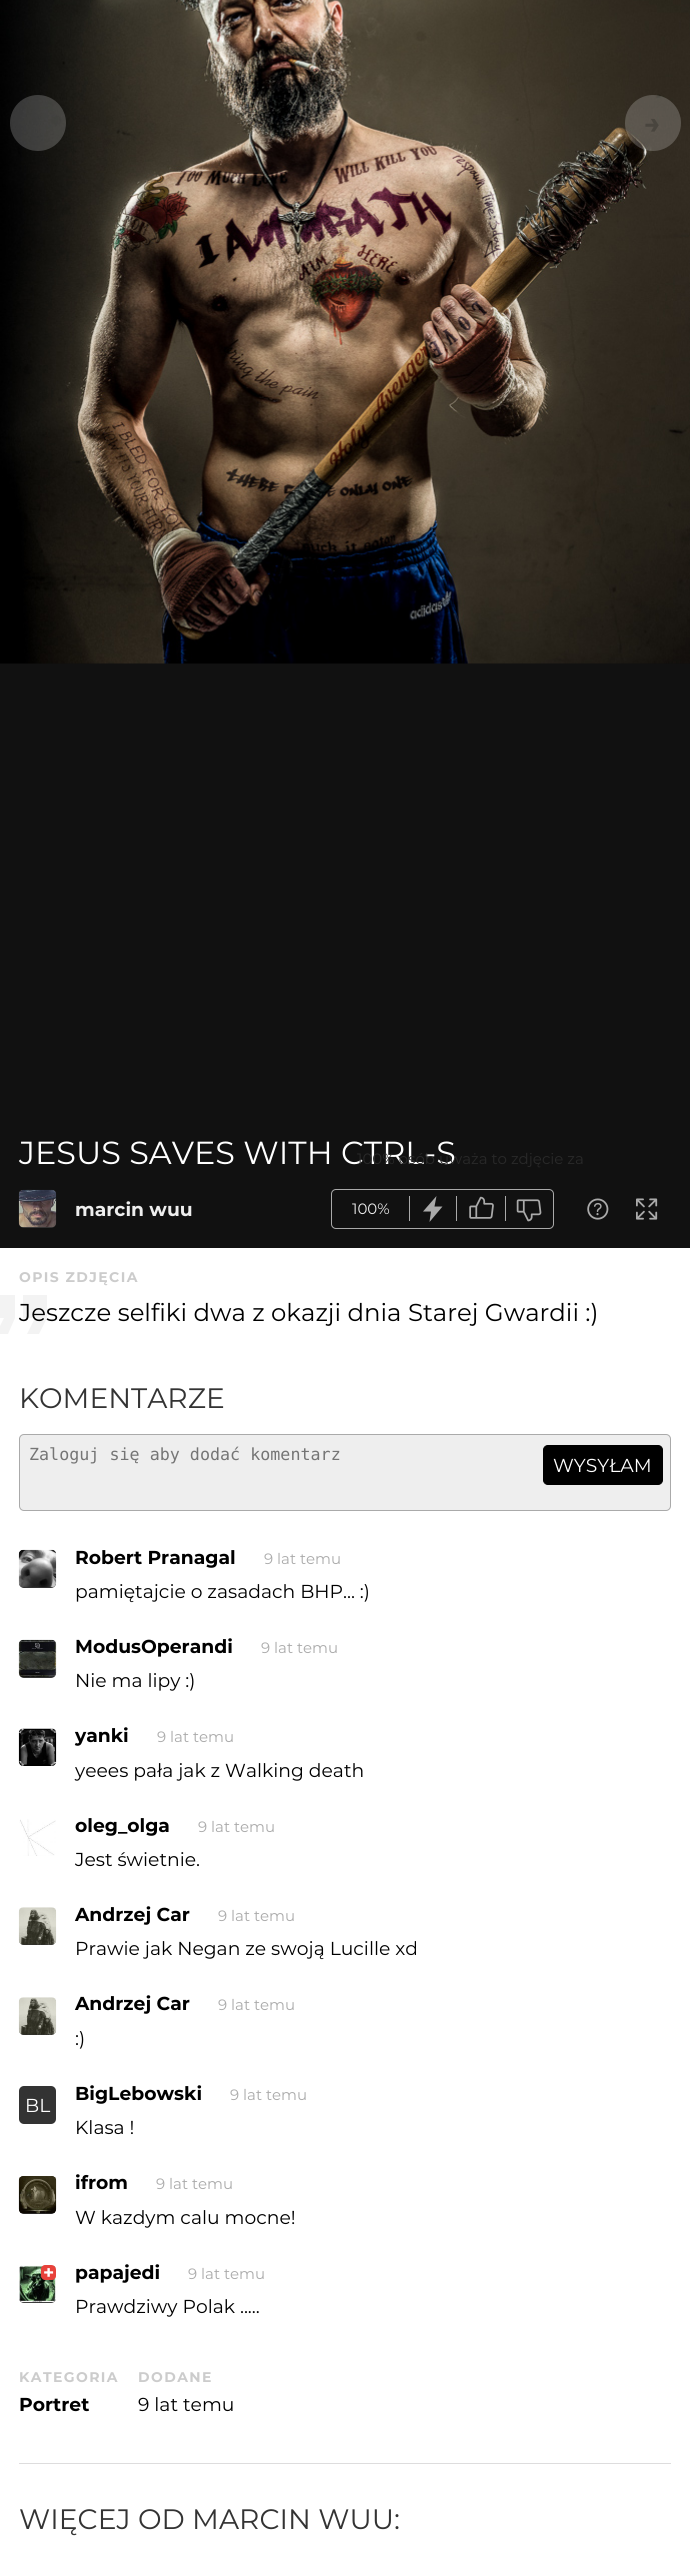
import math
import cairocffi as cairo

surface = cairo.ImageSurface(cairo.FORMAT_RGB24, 690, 2557)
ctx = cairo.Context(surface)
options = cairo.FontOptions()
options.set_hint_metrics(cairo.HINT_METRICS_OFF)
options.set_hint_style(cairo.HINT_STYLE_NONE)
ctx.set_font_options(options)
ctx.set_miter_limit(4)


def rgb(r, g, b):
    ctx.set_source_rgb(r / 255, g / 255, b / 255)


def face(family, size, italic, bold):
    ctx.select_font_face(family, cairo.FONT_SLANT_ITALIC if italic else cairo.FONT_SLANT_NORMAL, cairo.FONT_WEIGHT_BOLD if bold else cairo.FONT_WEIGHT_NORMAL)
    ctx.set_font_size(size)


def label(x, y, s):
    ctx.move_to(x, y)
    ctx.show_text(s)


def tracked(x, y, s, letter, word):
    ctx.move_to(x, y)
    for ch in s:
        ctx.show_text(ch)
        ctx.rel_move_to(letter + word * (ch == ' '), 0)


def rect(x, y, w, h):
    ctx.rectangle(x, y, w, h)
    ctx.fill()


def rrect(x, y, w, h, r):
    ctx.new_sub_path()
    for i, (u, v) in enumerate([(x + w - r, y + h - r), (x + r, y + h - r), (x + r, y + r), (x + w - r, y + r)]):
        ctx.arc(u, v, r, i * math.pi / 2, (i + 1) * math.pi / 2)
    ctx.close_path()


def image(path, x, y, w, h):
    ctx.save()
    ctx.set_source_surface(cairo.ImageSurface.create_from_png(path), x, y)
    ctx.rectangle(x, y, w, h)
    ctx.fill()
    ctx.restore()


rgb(255, 255, 255)
ctx.paint()
rgb(17, 17, 17)
rect(0, 663, 690, 585)
image('image0.png', 0, 0, 690, 664)
ctx.set_source_rgba(1, 1, 1, 0.2)
ctx.arc(38, 123, 28, 0, 2 * math.pi)
ctx.fill()
ctx.arc(653, 123, 28, 0, 2 * math.pi)
ctx.fill()
face('Montserrat', 28.1, 0, 1)
rgb(73, 69, 62)
label(644, 133, '→')
face('Montserrat', 31.9, 0, 0)
rgb(255, 255, 255)
label(19, 1164, 'JESUS SAVES WITH CTRL-S')
rgb(51, 51, 51)
rrect(19, 1190, 37, 38, 5)
ctx.fill()
image('image1.png', 18, 1189, 39, 39)
face('Montserrat', 18.75, 0, 1)
rgb(238, 238, 238)
label(75, 1216, 'marcin wuu')
rrect(331.5, 1189.5, 222, 39, 4.5)
rgb(170, 170, 170)
ctx.set_line_width(1)
ctx.stroke()
face('Montserrat', 15, 0, 0)
rgb(41, 41, 41)
label(357, 1164, '100% osób uważa to zdjęcie za')
rgb(238, 238, 238)
label(352, 1214, '100%')
rgb(170, 170, 170)
rect(409, 1196, 1, 25)
ctx.new_path()
ctx.move_to(442.5, 1206.5)
ctx.line_to(434.5, 1206.5)
ctx.line_to(436.5, 1196)
ctx.line_to(423, 1211.5)
ctx.line_to(431, 1211.5)
ctx.line_to(429.5, 1222)
ctx.close_path()
ctx.fill()
rect(456, 1196, 1, 25)
image('image2.png', 469, 1196, 25, 23)
rect(505, 1196, 1, 25)
image('image3.png', 516, 1199, 26, 23)
image('image4.png', 587, 1198, 22, 22)
image('image5.png', 636, 1198, 22, 22)
face('Montserrat', 14, 0, 1)
rgb(204, 204, 204)
tracked(19, 1282, 'OPIS ZDJĘCIA', 1.4, 0)
ctx.set_source_rgba(0, 0, 0, 0.05)
ctx.new_path()
ctx.move_to(-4, 1334)
ctx.line_to(8, 1334)
ctx.line_to(15, 1318)
ctx.line_to(15, 1295)
ctx.line_to(-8, 1295)
ctx.line_to(-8, 1318)
ctx.line_to(4, 1318)
ctx.close_path()
ctx.move_to(27, 1334)
ctx.line_to(39, 1334)
ctx.line_to(47, 1318)
ctx.line_to(47, 1295)
ctx.line_to(23, 1295)
ctx.line_to(23, 1318)
ctx.line_to(35, 1318)
ctx.close_path()
ctx.fill()
face('Montserrat', 24.4, 0, 0)
rgb(0, 0, 0)
label(19, 1321, 'Jeszcze selfiki dwa z okazji dnia Starej Gwardii :)')
face('Montserrat', 28.1, 0, 0)
rgb(51, 51, 51)
label(19, 1408, 'KOMENTARZE')
rgb(238, 238, 238)
rrect(19.5, 1434.5, 651, 76, 4.5)
ctx.fill_preserve()
rgb(170, 170, 170)
ctx.stroke()
face('DejaVu Sans Mono', 16.7, 0, 0)
rgb(117, 117, 117)
label(29, 1460, 'Zaloguj się aby dodać komentarz')
rgb(0, 0, 0)
rrect(543.5, 1445.5, 119, 39, 4.5)
ctx.fill_preserve()
ctx.stroke()
face('Montserrat', 18.75, 0, 0)
rgb(255, 255, 255)
label(553, 1472, 'WYSYŁAM')
rgb(51, 51, 51)
rrect(19, 1550, 37, 38, 5)
ctx.fill()
image('image6.png', 18, 1549, 39, 39)
face('Montserrat', 18.75, 0, 1)
rgb(0, 0, 0)
label(75, 1564, 'Robert Pranagal')
face('Montserrat', 15, 0, 0)
rgb(170, 170, 170)
label(264, 1564, '9 lat temu')
face('Montserrat', 18.75, 0, 0)
rgb(0, 0, 0)
label(75, 1598, 'pamiętajcie o zasadach BHP... :)')
rgb(51, 51, 51)
rrect(19, 1640, 37, 38, 5)
ctx.fill()
image('image7.png', 18, 1639, 39, 38)
face('Montserrat', 18.75, 0, 1)
rgb(0, 0, 0)
label(75, 1653, 'ModusOperandi')
face('Montserrat', 15, 0, 0)
rgb(170, 170, 170)
label(261, 1653, '9 lat temu')
face('Montserrat', 18.75, 0, 0)
rgb(0, 0, 0)
label(75, 1687, 'Nie ma lipy :)')
image('image8.png', 18, 1728, 39, 38)
face('Montserrat', 18.75, 0, 1)
label(75, 1742, 'yanki')
face('Montserrat', 15, 0, 0)
rgb(170, 170, 170)
label(157, 1742, '9 lat temu')
face('Montserrat', 18.75, 0, 0)
rgb(0, 0, 0)
label(75, 1777, 'yeees pała jak z Walking death')
image('image9.png', 19, 1819, 37, 37)
face('Montserrat', 18.75, 0, 1)
label(75, 1832, 'oleg_olga')
face('Montserrat', 15, 0, 0)
rgb(170, 170, 170)
label(198, 1832, '9 lat temu')
face('Montserrat', 18.75, 0, 0)
rgb(0, 0, 0)
label(75, 1866, 'Jest świetnie.')
rgb(51, 51, 51)
rrect(19, 1908, 37, 37, 5)
ctx.fill()
image('image10.png', 18, 1907, 39, 38)
face('Montserrat', 18.75, 0, 1)
rgb(0, 0, 0)
label(75, 1921, 'Andrzej Car')
face('Montserrat', 15, 0, 0)
rgb(170, 170, 170)
label(218, 1921, '9 lat temu')
face('Montserrat', 18.75, 0, 0)
rgb(0, 0, 0)
label(75, 1955, 'Prawie jak Negan ze swoją Lucille xd')
rgb(51, 51, 51)
rrect(19, 1998, 37, 37, 5)
ctx.fill()
image('image11.png', 18, 1997, 39, 38)
face('Montserrat', 18.75, 0, 1)
rgb(0, 0, 0)
label(75, 2010, 'Andrzej Car')
face('Montserrat', 15, 0, 0)
rgb(170, 170, 170)
label(218, 2010, '9 lat temu')
face('Montserrat', 18.75, 0, 0)
rgb(0, 0, 0)
label(75, 2045, ':)')
rgb(51, 51, 51)
rrect(19, 2086, 37, 38, 5)
ctx.fill()
rgb(255, 255, 255)
label(25, 2112, 'BL')
face('Montserrat', 18.75, 0, 1)
rgb(0, 0, 0)
label(75, 2100, 'BigLebowski')
face('Montserrat', 15, 0, 0)
rgb(170, 170, 170)
label(230, 2100, '9 lat temu')
face('Montserrat', 18.75, 0, 0)
rgb(0, 0, 0)
label(75, 2134, 'Klasa !')
rgb(51, 51, 51)
rrect(19, 2176, 37, 38, 5)
ctx.fill()
image('image12.png', 18, 2176, 39, 38)
face('Montserrat', 18.75, 0, 1)
rgb(0, 0, 0)
label(75, 2189, 'ifrom')
face('Montserrat', 15, 0, 0)
rgb(170, 170, 170)
label(156, 2189, '9 lat temu')
face('Montserrat', 18.75, 0, 0)
rgb(0, 0, 0)
label(75, 2224, 'W kazdym calu mocne!')
rgb(51, 51, 51)
rrect(19, 2265, 37, 38, 5)
ctx.fill()
image('image13.png', 19, 2265, 37, 38)
rgb(232, 66, 59)
ctx.new_path()
ctx.move_to(45, 2265)
ctx.line_to(51, 2265)
ctx.curve_to(54, 2265, 56, 2267, 56, 2270)
ctx.line_to(56, 2276)
ctx.curve_to(56, 2278, 54, 2280, 52, 2280)
ctx.line_to(45, 2280)
ctx.curve_to(43, 2280, 41, 2278, 41, 2276)
ctx.line_to(41, 2269)
ctx.curve_to(41, 2267, 43, 2265, 45, 2265)
ctx.close_path()
ctx.fill()
face('Montserrat', 18.75, 0, 1)
rgb(255, 255, 255)
label(43, 2279, '+')
rgb(0, 0, 0)
label(75, 2279, 'papajedi')
face('Montserrat', 15, 0, 0)
rgb(170, 170, 170)
label(188, 2279, '9 lat temu')
face('Montserrat', 18.75, 0, 0)
rgb(0, 0, 0)
label(75, 2313, 'Prawdziwy Polak .....')
face('Montserrat', 14, 0, 1)
rgb(204, 204, 204)
tracked(19, 2382, 'KATEGORIA', 1.4, 0)
face('Montserrat', 18.75, 0, 1)
rgb(0, 0, 0)
label(19, 2411, 'Portret')
face('Montserrat', 14, 0, 1)
rgb(204, 204, 204)
tracked(138, 2382, 'DODANE', 1.4, 0)
face('Montserrat', 18.75, 0, 0)
rgb(0, 0, 0)
label(138, 2411, '9 lat temu')
rgb(221, 221, 221)
rect(19, 2463, 652, 1)
face('Montserrat', 28.1, 0, 0)
rgb(51, 51, 51)
label(19, 2529, 'WIĘCEJ OD MARCIN WUU:')
surface.write_to_png('render.png')
